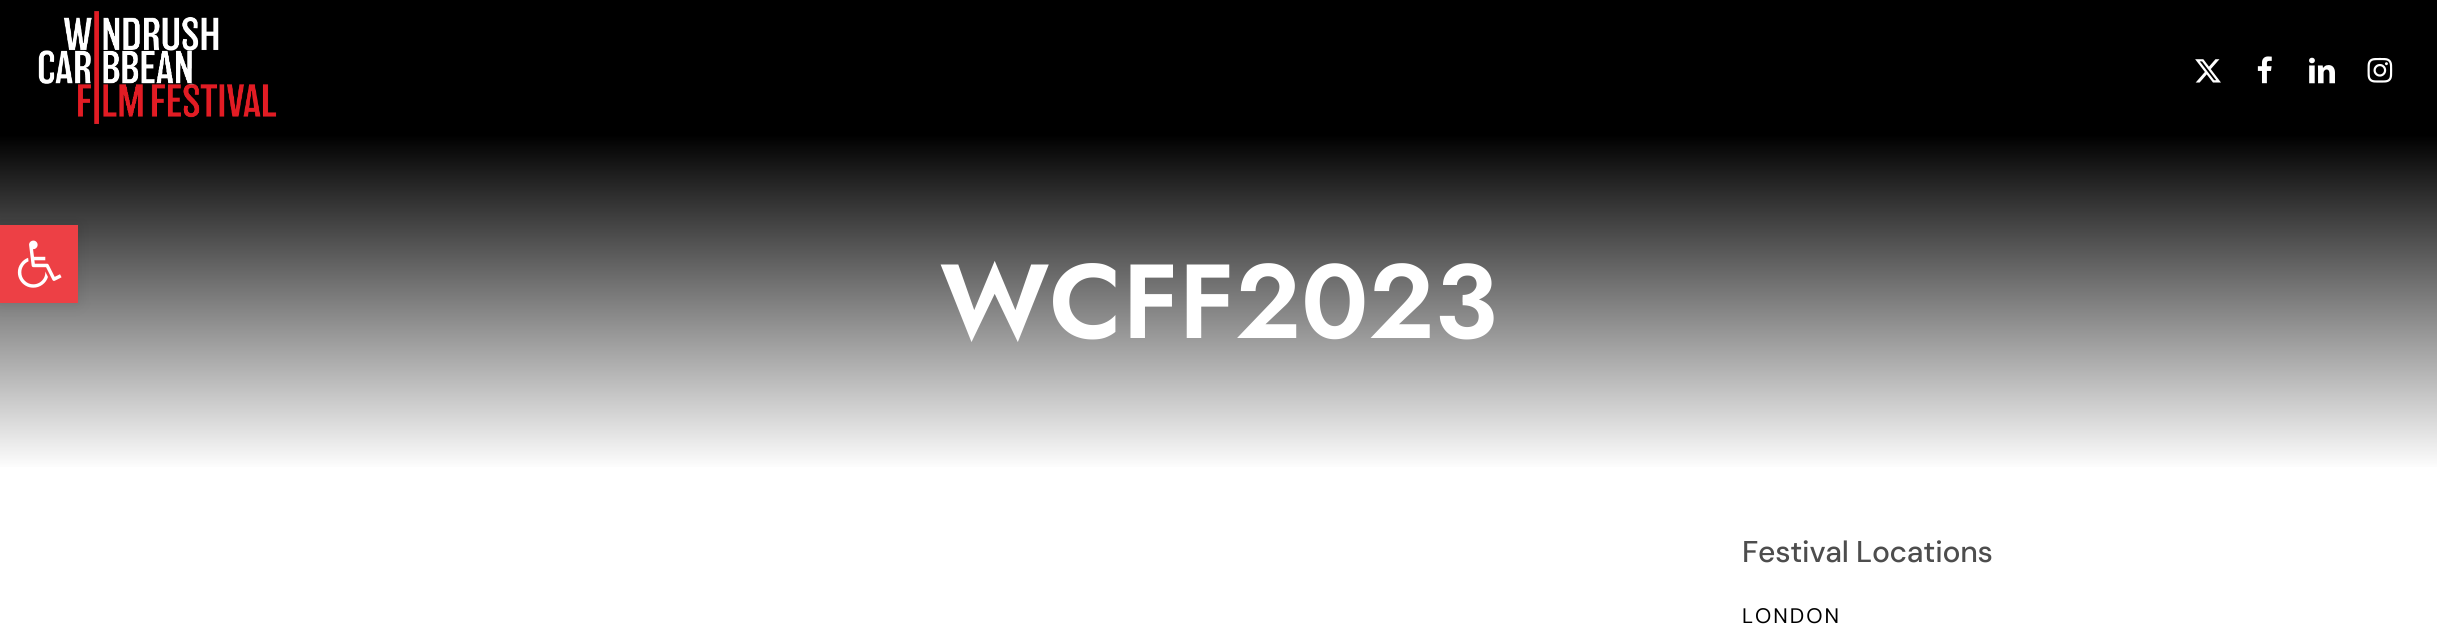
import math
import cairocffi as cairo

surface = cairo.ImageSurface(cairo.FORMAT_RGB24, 2437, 633)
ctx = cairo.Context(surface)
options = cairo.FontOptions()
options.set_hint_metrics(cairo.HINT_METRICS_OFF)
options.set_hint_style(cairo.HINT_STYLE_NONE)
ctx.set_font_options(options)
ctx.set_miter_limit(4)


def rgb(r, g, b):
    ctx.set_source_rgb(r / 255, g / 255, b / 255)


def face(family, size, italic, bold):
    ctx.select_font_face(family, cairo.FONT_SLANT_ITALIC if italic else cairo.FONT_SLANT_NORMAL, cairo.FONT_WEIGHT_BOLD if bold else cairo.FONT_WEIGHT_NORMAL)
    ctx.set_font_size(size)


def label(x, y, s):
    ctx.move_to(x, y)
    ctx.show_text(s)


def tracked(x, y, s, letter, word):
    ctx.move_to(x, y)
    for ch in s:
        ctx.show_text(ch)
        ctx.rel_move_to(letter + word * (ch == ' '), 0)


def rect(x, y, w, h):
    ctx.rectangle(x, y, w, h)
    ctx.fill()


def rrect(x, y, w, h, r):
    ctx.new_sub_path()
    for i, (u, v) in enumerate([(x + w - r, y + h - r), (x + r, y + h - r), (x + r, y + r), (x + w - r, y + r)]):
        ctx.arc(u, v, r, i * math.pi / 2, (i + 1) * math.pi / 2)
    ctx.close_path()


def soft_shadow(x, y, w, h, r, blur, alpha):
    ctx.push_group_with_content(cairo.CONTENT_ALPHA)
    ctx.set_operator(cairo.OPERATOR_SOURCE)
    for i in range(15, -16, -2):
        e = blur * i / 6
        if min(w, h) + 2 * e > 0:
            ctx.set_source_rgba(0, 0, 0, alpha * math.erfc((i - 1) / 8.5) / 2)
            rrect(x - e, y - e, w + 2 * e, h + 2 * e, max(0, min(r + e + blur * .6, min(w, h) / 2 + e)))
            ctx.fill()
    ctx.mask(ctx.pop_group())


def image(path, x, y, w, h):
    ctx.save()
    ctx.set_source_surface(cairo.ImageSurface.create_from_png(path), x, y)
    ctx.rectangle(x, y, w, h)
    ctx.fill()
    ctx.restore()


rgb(255, 255, 255)
ctx.paint()
gradient = cairo.LinearGradient(1219, 135, 1219, 470)
gradient.add_color_stop_rgba(0, 0, 0, 0, 1)
gradient.add_color_stop_rgba(1, 1, 1, 1, 1)
ctx.set_source(gradient)
rect(0, 135, 2437, 332)
rgb(0, 0, 0)
soft_shadow(0, 225, 78, 78, 0, 7.5, 0.1)
rgb(237, 64, 69)
rect(0, 225, 78, 78)
image('image0.png', 17, 240, 45, 48)
rgb(0, 0, 0)
rect(0, 0, 2437, 135)
image('image1.png', 38, 11, 239, 113)
image('image2.png', 2195, 59, 26, 24)
image('image3.png', 2257, 56, 15, 28)
image('image4.png', 2309, 57, 26, 27)
image('image5.png', 2367, 57, 26, 26)
face('Jost SemiBold', 105, 0, 0)
rgb(255, 255, 255)
label(940, 338, 'WCFF2023')
face('DM Sans Medium', 30, 0, 0)
rgb(77, 77, 77)
tracked(1742, 562, 'Festival Locations', -0.25, 0)
face('DM Sans', 21, 0, 0)
rgb(0, 0, 0)
tracked(1742, 623, 'LONDON', 2, 0)
surface.write_to_png('render.png')
